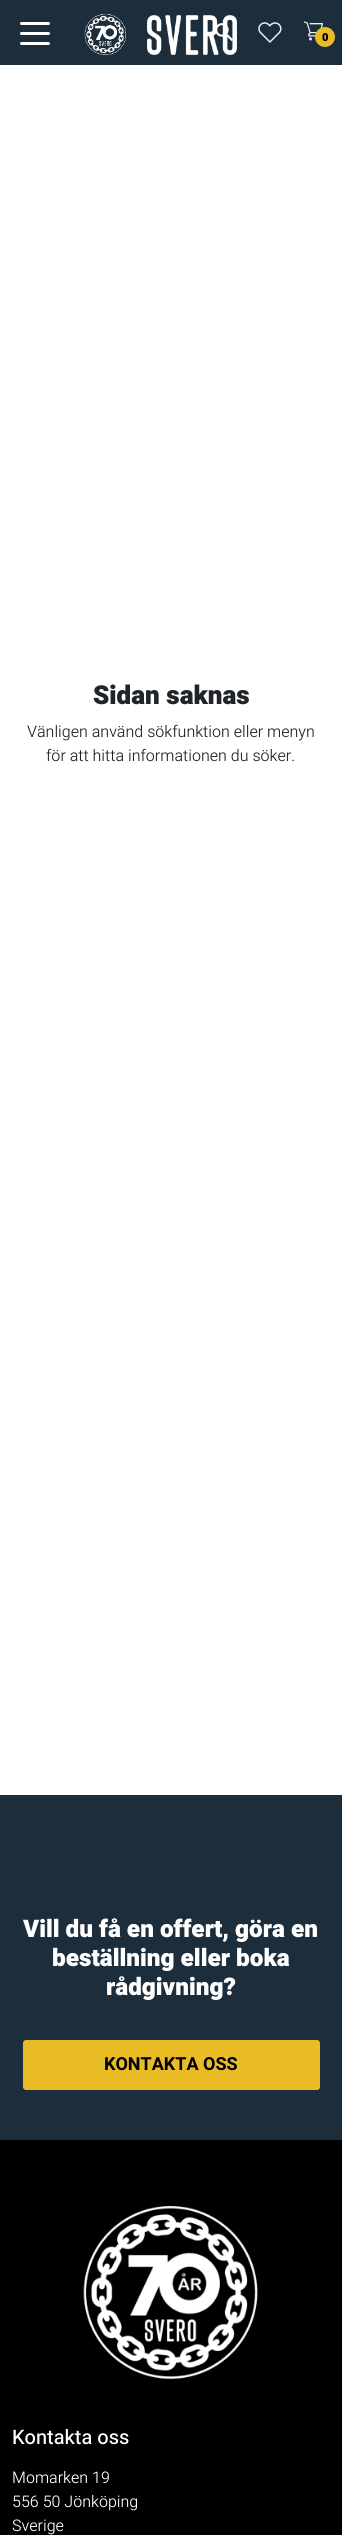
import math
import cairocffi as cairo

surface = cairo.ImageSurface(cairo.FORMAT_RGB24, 342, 2535)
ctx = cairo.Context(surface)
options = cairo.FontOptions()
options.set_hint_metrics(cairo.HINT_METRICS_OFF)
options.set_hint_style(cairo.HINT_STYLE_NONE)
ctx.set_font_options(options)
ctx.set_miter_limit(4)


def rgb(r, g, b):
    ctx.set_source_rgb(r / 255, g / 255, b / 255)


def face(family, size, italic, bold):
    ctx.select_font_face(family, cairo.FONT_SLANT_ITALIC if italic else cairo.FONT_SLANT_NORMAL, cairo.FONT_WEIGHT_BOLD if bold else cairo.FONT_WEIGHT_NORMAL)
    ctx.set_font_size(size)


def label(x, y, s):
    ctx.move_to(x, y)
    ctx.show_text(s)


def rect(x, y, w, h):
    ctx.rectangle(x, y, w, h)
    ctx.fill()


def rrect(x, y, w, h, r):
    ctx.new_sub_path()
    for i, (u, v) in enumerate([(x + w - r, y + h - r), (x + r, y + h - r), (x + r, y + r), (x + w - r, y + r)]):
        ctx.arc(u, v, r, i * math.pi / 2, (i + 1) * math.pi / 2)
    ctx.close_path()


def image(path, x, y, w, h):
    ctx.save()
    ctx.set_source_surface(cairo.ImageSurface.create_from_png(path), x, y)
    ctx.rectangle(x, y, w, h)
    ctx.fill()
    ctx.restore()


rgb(255, 255, 255)
ctx.paint()
rgb(28, 45, 59)
rect(0, 0, 342, 65)
rgb(255, 255, 255)
rrect(20, 32, 30, 3, 1.5)
ctx.fill()
rrect(20, 22, 30, 3, 1.5)
ctx.fill()
rrect(20, 42, 30, 3, 1.5)
ctx.fill()
image('image0.png', 84, 13, 42, 42)
image('image1.png', 147, 15, 90, 40)
image('image2.png', 258, 22, 24, 21)
image('image3.png', 216, 23, 17, 19)
image('image4.png', 304, 21, 19, 20)
rgb(233, 188, 38)
ctx.arc(325, 37, 10, 0, 2 * math.pi)
ctx.fill()
face('Heebo Black', 11, 0, 0)
rgb(0, 0, 0)
label(322, 41, '0')
face('Heebo Black', 26, 0, 0)
rgb(33, 37, 41)
label(93, 704, 'Sidan saknas')
face('Heebo Light', 16, 0, 0)
label(27, 737, 'Vänligen använd sökfunktion eller menyn')
label(46, 761, 'för att hitta informationen du söker.')
rgb(28, 45, 59)
rect(0, 1795, 342, 345)
face('Heebo Black', 24.25, 0, 0)
rgb(255, 255, 255)
label(23, 1937, 'Vill du få en offert, göra en')
label(52, 1966, 'beställning eller boka')
label(106, 1995, 'rådgivning?')
rgb(233, 188, 38)
rrect(23, 2040, 297, 50, 3)
ctx.fill()
face('Heebo', 18, 0, 1)
rgb(0, 0, 0)
label(104, 2070, 'KONTAKTA OSS')
rect(0, 2140, 342, 395)
image('image5.png', 83, 2205, 175, 175)
face('Heebo Medium', 20, 0, 0)
rgb(255, 255, 255)
label(12, 2444, 'Kontakta oss')
face('Heebo Light', 16, 0, 0)
label(12, 2483, 'Momarken 19')
label(12, 2507, '556 50 Jönköping')
label(12, 2531, 'Sverige')
surface.write_to_png('render.png')
